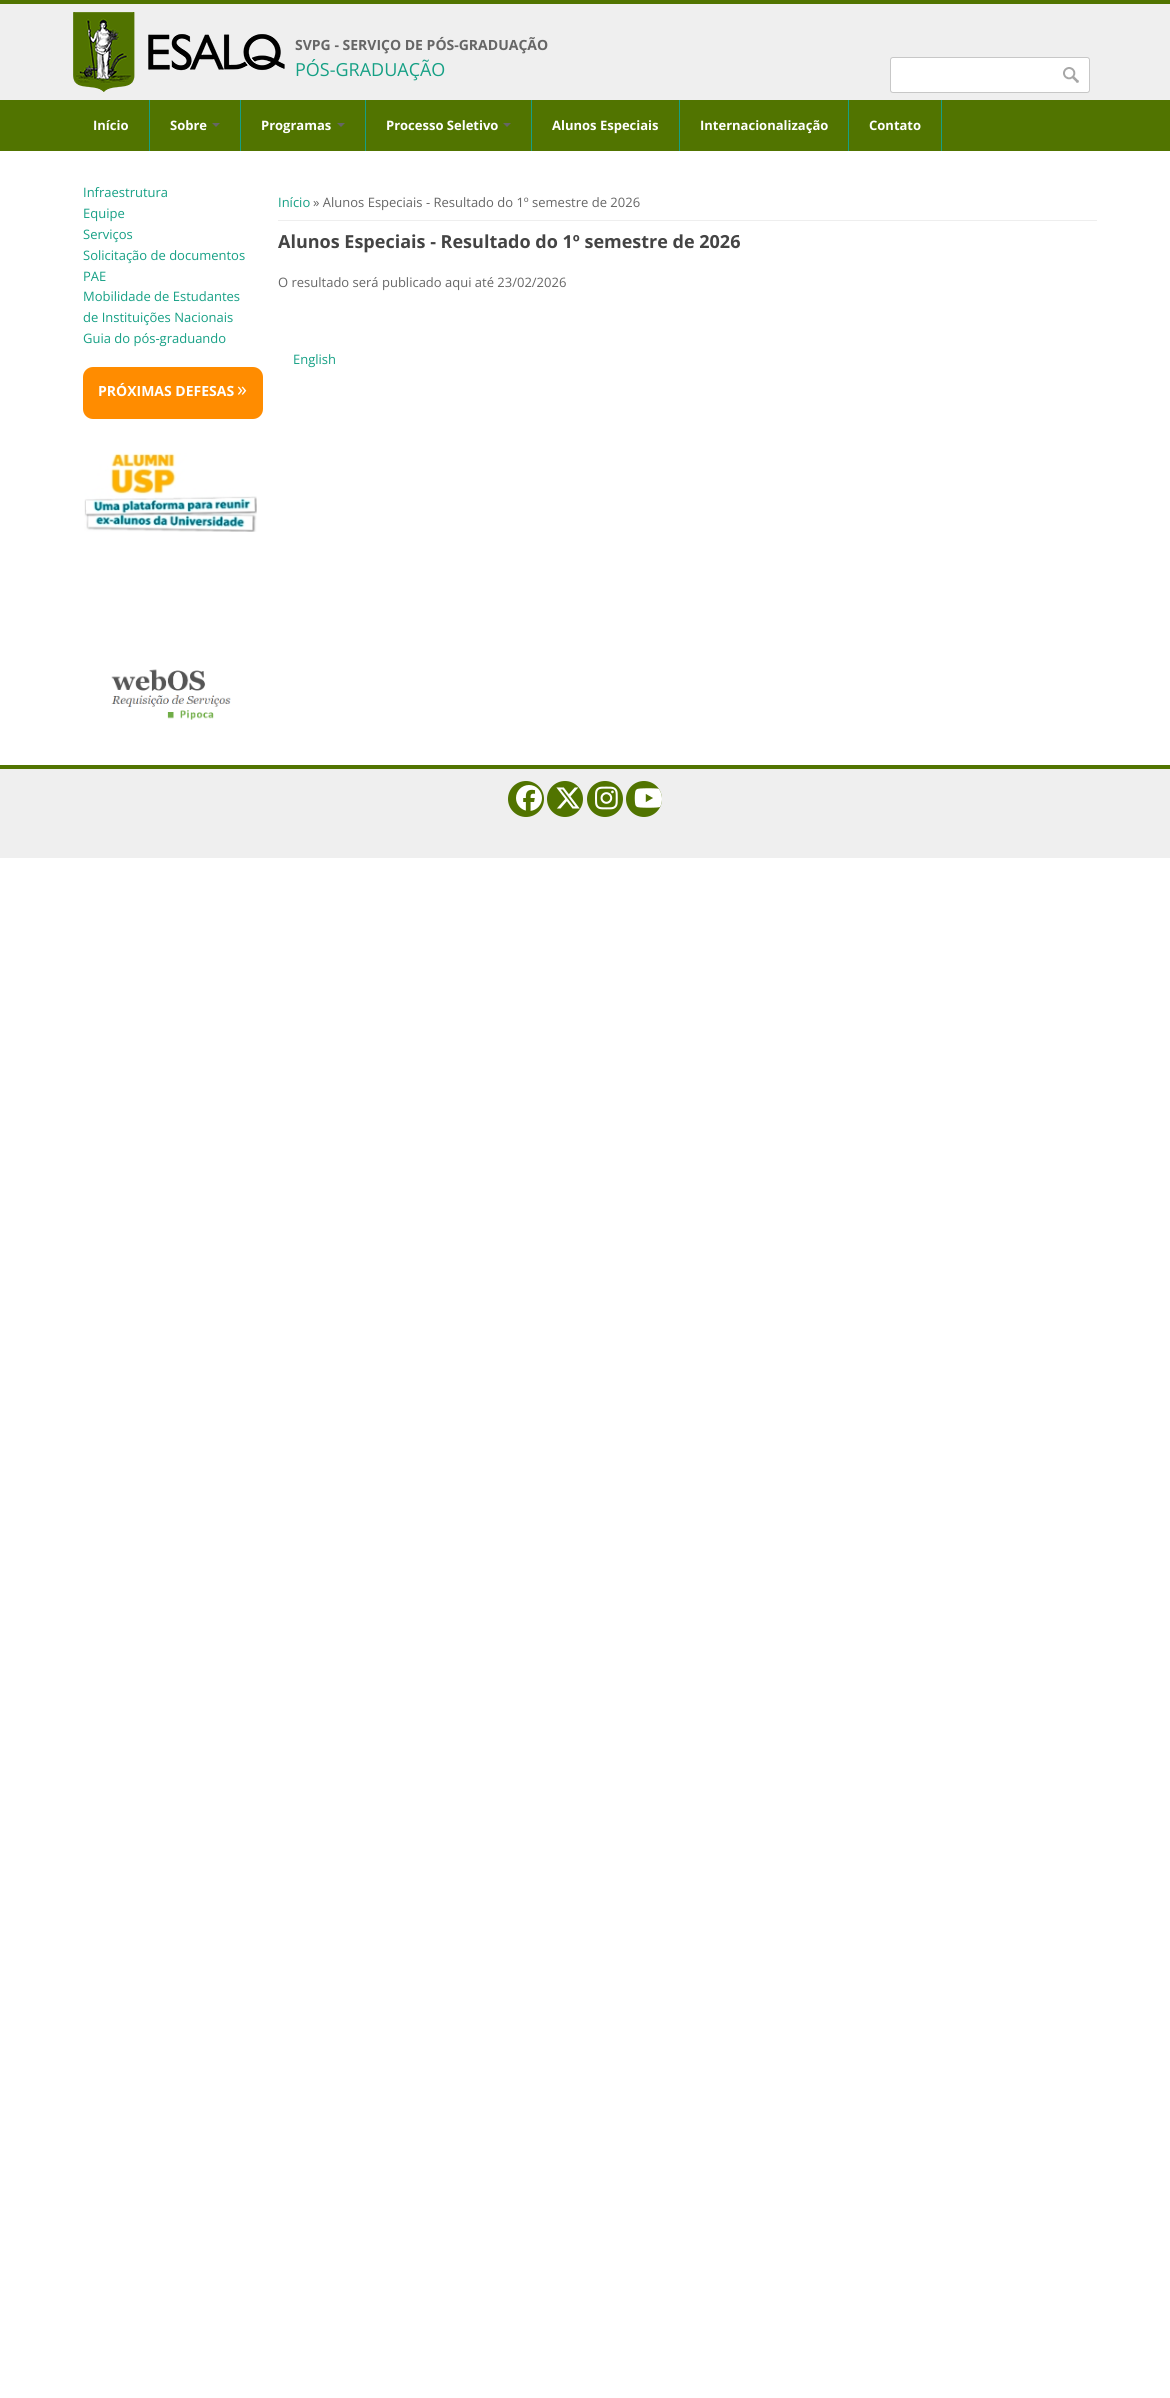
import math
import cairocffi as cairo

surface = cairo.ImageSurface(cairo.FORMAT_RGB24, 1170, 2398)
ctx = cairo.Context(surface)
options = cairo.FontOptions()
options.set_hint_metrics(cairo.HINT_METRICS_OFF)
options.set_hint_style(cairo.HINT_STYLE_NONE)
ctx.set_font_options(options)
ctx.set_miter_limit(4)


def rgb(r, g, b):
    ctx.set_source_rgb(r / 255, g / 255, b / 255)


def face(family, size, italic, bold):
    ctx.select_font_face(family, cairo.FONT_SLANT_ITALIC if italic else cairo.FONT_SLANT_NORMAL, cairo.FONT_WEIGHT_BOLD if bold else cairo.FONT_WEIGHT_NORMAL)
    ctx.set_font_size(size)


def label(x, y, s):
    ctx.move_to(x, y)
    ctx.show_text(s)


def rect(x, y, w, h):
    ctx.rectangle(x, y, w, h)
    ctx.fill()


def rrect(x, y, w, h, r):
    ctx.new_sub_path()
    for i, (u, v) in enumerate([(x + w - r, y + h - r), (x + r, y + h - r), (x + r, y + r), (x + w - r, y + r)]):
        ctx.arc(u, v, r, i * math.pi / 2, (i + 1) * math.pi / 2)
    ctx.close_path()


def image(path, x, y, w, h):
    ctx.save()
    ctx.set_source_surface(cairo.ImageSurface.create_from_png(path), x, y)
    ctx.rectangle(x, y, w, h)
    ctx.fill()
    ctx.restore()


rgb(255, 255, 255)
ctx.paint()
rgb(239, 239, 239)
rect(0, 4, 1170, 96)
rgb(81, 116, 0)
rect(0, 0, 1170, 4)
image('image0.png', 73, 12, 212, 80)
face('Open Sans', 14, 0, 1)
rgb(102, 102, 102)
label(295, 50, 'SVPG - SERVIÇO DE PÓS-GRADUAÇÃO')
face('Open Sans', 18, 0, 0)
rgb(22, 160, 133)
label(295, 76, 'PÓS-GRADUAÇÃO')
rgb(255, 255, 255)
rrect(890.5, 57.5, 199, 35, 2.5)
ctx.fill_preserve()
rgb(199, 199, 199)
ctx.set_line_width(1)
ctx.stroke()
image('image1.png', 1063, 67, 16, 16)
rgb(81, 116, 0)
rect(0, 100, 1170, 51)
rgb(22, 160, 133)
rect(149, 100, 1, 51)
face('Open Sans', 13, 0, 1)
rgb(255, 255, 255)
label(93, 130, 'Início')
rgb(22, 160, 133)
rect(240, 100, 1, 51)
rgb(255, 255, 255)
label(170, 130, 'Sobre')
rgb(102, 102, 102)
ctx.new_path()
ctx.move_to(212, 123)
ctx.line_to(220, 123)
ctx.line_to(216, 127)
ctx.close_path()
ctx.fill()
rgb(22, 160, 133)
rect(365, 100, 1, 51)
rgb(255, 255, 255)
label(261, 130, 'Programas')
rgb(102, 102, 102)
ctx.new_path()
ctx.move_to(337, 123)
ctx.line_to(345, 123)
ctx.line_to(341, 127)
ctx.close_path()
ctx.fill()
rgb(22, 160, 133)
rect(531, 100, 1, 51)
rgb(255, 255, 255)
label(386, 130, 'Processo Seletivo')
rgb(102, 102, 102)
ctx.new_path()
ctx.move_to(503, 123)
ctx.line_to(511, 123)
ctx.line_to(507, 127)
ctx.close_path()
ctx.fill()
rgb(22, 160, 133)
rect(679, 100, 1, 51)
rgb(255, 255, 255)
label(552, 130, 'Alunos Especiais')
rgb(22, 160, 133)
rect(848, 100, 1, 51)
rgb(255, 255, 255)
label(700, 130, 'Internacionalização')
rgb(22, 160, 133)
rect(941, 100, 1, 51)
rgb(255, 255, 255)
label(869, 130, 'Contato')
face('Open Sans', 13, 0, 0)
rgb(22, 160, 133)
label(83, 197, 'Infraestrutura')
label(83, 218, 'Equipe')
label(83, 239, 'Serviços')
label(83, 260, 'Solicitação de documentos')
label(83, 281, 'PAE')
label(83, 301, 'Mobilidade de Estudantes')
label(83, 322, 'de Instituições Nacionais')
label(83, 343, 'Guia do pós-graduando')
rgb(255, 140, 0)
rrect(83, 367, 180, 52, 10)
ctx.fill()
face('Open Sans', 14, 0, 1)
rgb(255, 255, 255)
label(98, 396, 'PRÓXIMAS DEFESAS')
face('Open Sans', 20, 0, 0)
label(237, 396, '»')
image('image2.png', 84, 453, 173, 79)
image('image3.png', 111, 669, 120, 51)
rgb(238, 238, 238)
rect(278, 220, 819, 1)
face('Open Sans', 13, 0, 0)
rgb(22, 160, 133)
label(278, 207, 'Início')
rgb(102, 102, 102)
label(313, 207, '» Alunos Especiais - Resultado do 1º semestre de 2026')
face('Open Sans', 18, 0, 1)
rgb(68, 68, 68)
label(278, 248, 'Alunos Especiais - Resultado do 1º semestre de 2026')
face('Open Sans', 13, 0, 0)
rgb(102, 102, 102)
label(278, 287, 'O resultado será publicado aqui até 23/02/2026')
rgb(22, 160, 133)
label(293, 364, 'English')
rgb(239, 239, 239)
rect(0, 769, 1170, 89)
rgb(81, 116, 0)
rect(0, 765, 1170, 4)
ctx.new_path()
ctx.arc(526, 799, 18, 0, 2 * math.pi)
ctx.fill()
image('image4.png', 516, 785, 26, 26)
ctx.arc(565, 799, 18, 0, 2 * math.pi)
ctx.fill()
image('image5.png', 556, 787, 24, 22)
ctx.arc(605, 799, 18, 0, 2 * math.pi)
ctx.fill()
image('image6.png', 595, 786, 23, 24)
ctx.arc(644, 799, 18, 0, 2 * math.pi)
ctx.fill()
image('image7.png', 634, 788, 28, 20)
surface.write_to_png('render.png')
